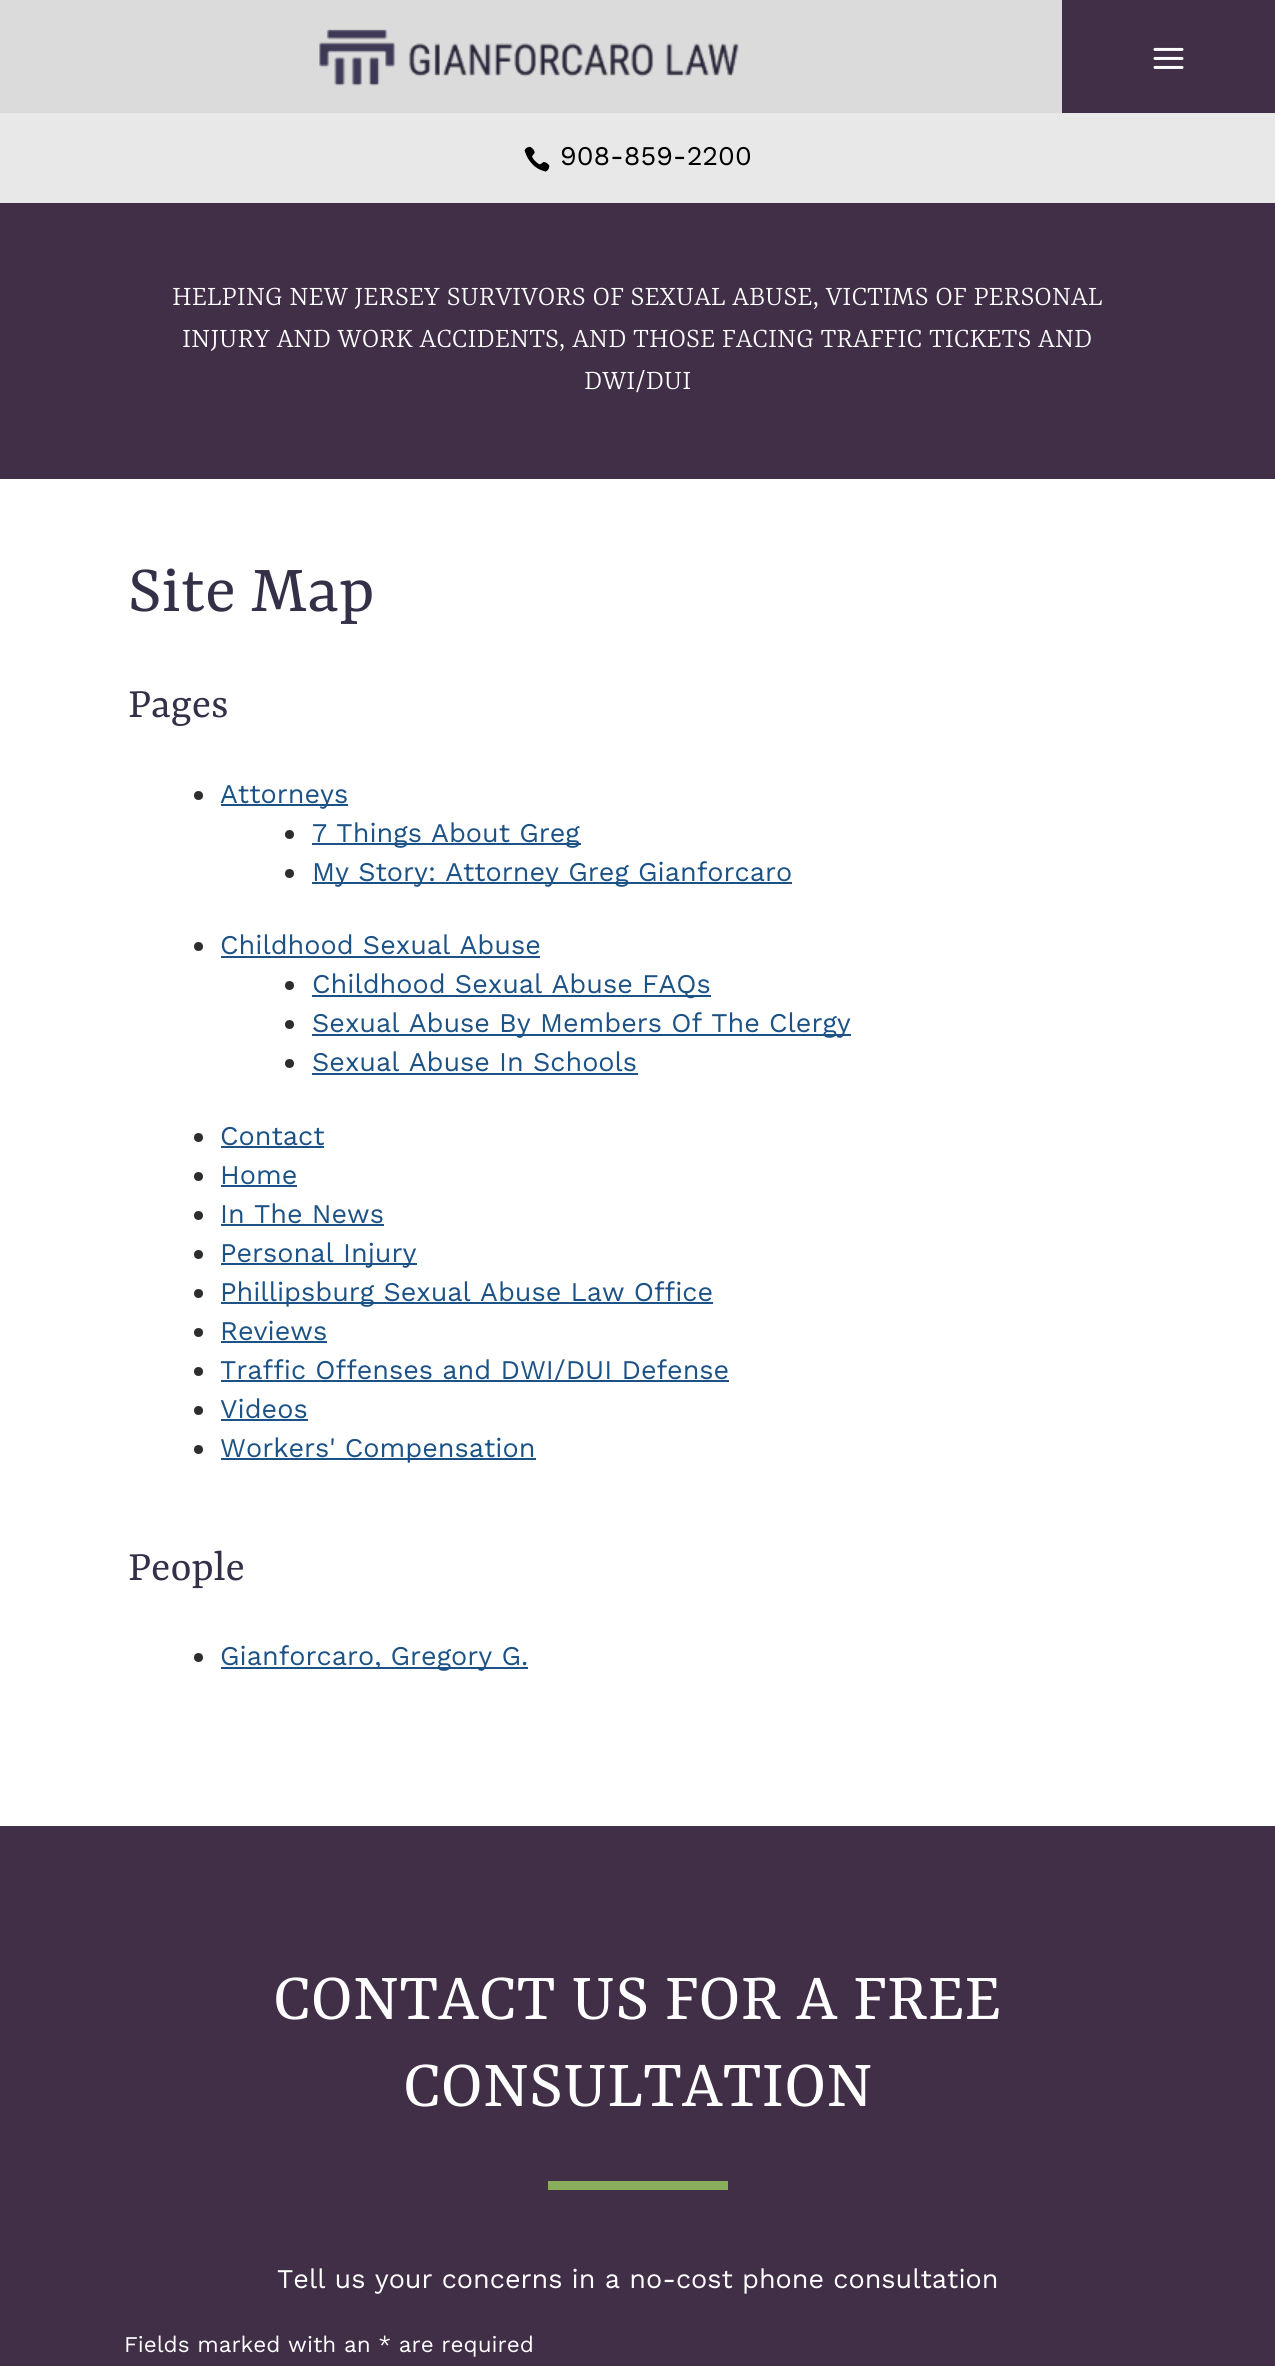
import math
import cairocffi as cairo

surface = cairo.ImageSurface(cairo.FORMAT_RGB24, 1275, 2366)
ctx = cairo.Context(surface)
options = cairo.FontOptions()
options.set_hint_metrics(cairo.HINT_METRICS_OFF)
options.set_hint_style(cairo.HINT_STYLE_NONE)
ctx.set_font_options(options)
ctx.set_miter_limit(4)


def rgb(r, g, b):
    ctx.set_source_rgb(r / 255, g / 255, b / 255)


def face(family, size, italic, bold):
    ctx.select_font_face(family, cairo.FONT_SLANT_ITALIC if italic else cairo.FONT_SLANT_NORMAL, cairo.FONT_WEIGHT_BOLD if bold else cairo.FONT_WEIGHT_NORMAL)
    ctx.set_font_size(size)


def label(x, y, s):
    ctx.move_to(x, y)
    ctx.show_text(s)


def rect(x, y, w, h):
    ctx.rectangle(x, y, w, h)
    ctx.fill()


def image(path, x, y, w, h):
    ctx.save()
    ctx.set_source_surface(cairo.ImageSurface.create_from_png(path), x, y)
    ctx.rectangle(x, y, w, h)
    ctx.fill()
    ctx.restore()


rgb(255, 255, 255)
ctx.paint()
rgb(219, 219, 219)
rect(0, 0, 1062, 113)
image('image0.png', 319, 29, 420, 57)
rgb(65, 47, 72)
rect(1062, 0, 213, 113)
image('image1.png', 1153, 47, 31, 22)
rgb(232, 232, 232)
rect(0, 113, 1275, 90)
image('image2.png', 524, 146, 26, 26)
face('Work Sans', 27, 0, 0)
rgb(0, 0, 0)
label(560, 165, '908-859-2200')
rgb(65, 47, 72)
rect(0, 203, 1275, 276)
face('Rasa Light', 30, 0, 0)
rgb(255, 255, 255)
label(172, 305, 'HELPING NEW JERSEY SURVIVORS OF SEXUAL ABUSE, VICTIMS OF PERSONAL')
label(182, 347, 'INJURY AND WORK ACCIDENTS, AND THOSE FACING TRAFFIC TICKETS AND')
label(584, 389, 'DWI/DUI')
face('Rasa', 72, 0, 0)
rgb(53, 47, 72)
label(128, 611, 'Site Map')
face('Rasa', 45, 0, 0)
label(128, 717, 'Pages')
rgb(46, 45, 45)
ctx.new_path()
ctx.arc(198.5, 795.5, 4.5, 0, 2 * math.pi)
ctx.fill()
rgb(28, 82, 133)
rect(221, 804, 127, 2)
face('Work Sans', 27, 0, 0)
label(220, 803, 'Attorneys')
rgb(46, 45, 45)
ctx.new_path()
ctx.arc(289.5, 834.5, 4.5, 0, 2 * math.pi)
ctx.fill()
rgb(28, 82, 133)
rect(312, 843, 269, 2)
label(312, 842, '7 Things About Greg')
rgb(46, 45, 45)
ctx.new_path()
ctx.arc(289.5, 873.5, 4.5, 0, 2 * math.pi)
ctx.fill()
rgb(28, 82, 133)
rect(312, 882, 480, 2)
label(312, 881, 'My Story: Attorney Greg Gianforcaro')
rgb(46, 45, 45)
ctx.new_path()
ctx.arc(198.5, 946.5, 4.5, 0, 2 * math.pi)
ctx.fill()
rgb(28, 82, 133)
label(220, 954, 'Childhood Sexual Abuse')
rect(221, 956, 319, 2)
rgb(46, 45, 45)
ctx.new_path()
ctx.arc(289.5, 985.5, 4.5, 0, 2 * math.pi)
ctx.fill()
rgb(28, 82, 133)
rect(312, 995, 399, 2)
label(312, 993, 'Childhood Sexual Abuse FAQs')
rgb(46, 45, 45)
ctx.new_path()
ctx.arc(289.5, 1024.5, 4.5, 0, 2 * math.pi)
ctx.fill()
rgb(28, 82, 133)
rect(312, 1034, 539, 2)
label(312, 1032, 'Sexual Abuse By Members Of The Clergy')
rgb(46, 45, 45)
ctx.new_path()
ctx.arc(289.5, 1063.5, 4.5, 0, 2 * math.pi)
ctx.fill()
rgb(28, 82, 133)
label(312, 1071, 'Sexual Abuse In Schools')
rect(312, 1073, 326, 2)
rgb(46, 45, 45)
ctx.new_path()
ctx.arc(198.5, 1137.5, 4.5, 0, 2 * math.pi)
ctx.fill()
rgb(28, 82, 133)
label(220, 1145, 'Contact')
rect(221, 1146, 103, 2)
rgb(46, 45, 45)
ctx.new_path()
ctx.arc(198.5, 1176.5, 4.5, 0, 2 * math.pi)
ctx.fill()
rgb(28, 82, 133)
label(220, 1184, 'Home')
rect(221, 1185, 76, 2)
rgb(46, 45, 45)
ctx.new_path()
ctx.arc(198.5, 1215.5, 4.5, 0, 2 * math.pi)
ctx.fill()
rgb(28, 82, 133)
label(220, 1223, 'In The News')
rect(221, 1224, 163, 2)
rgb(46, 45, 45)
ctx.new_path()
ctx.arc(198.5, 1254.5, 4.5, 0, 2 * math.pi)
ctx.fill()
rgb(28, 82, 133)
rect(221, 1263, 196, 2)
label(220, 1262, 'Personal Injury')
rgb(46, 45, 45)
ctx.new_path()
ctx.arc(198.5, 1293.5, 4.5, 0, 2 * math.pi)
ctx.fill()
rgb(28, 82, 133)
rect(221, 1302, 492, 2)
label(220, 1301, 'Phillipsburg Sexual Abuse Law Office')
rgb(46, 45, 45)
ctx.new_path()
ctx.arc(198.5, 1332.5, 4.5, 0, 2 * math.pi)
ctx.fill()
rgb(28, 82, 133)
label(220, 1340, 'Reviews')
rect(221, 1341, 106, 2)
rgb(46, 45, 45)
ctx.new_path()
ctx.arc(198.5, 1371.5, 4.5, 0, 2 * math.pi)
ctx.fill()
rgb(28, 82, 133)
rect(221, 1380, 508, 2)
label(220, 1379, 'Traffic Offenses and DWI/DUI Defense')
rgb(46, 45, 45)
ctx.new_path()
ctx.arc(198.5, 1410.5, 4.5, 0, 2 * math.pi)
ctx.fill()
rgb(28, 82, 133)
label(220, 1418, 'Videos')
rect(221, 1419, 87, 2)
rgb(46, 45, 45)
ctx.new_path()
ctx.arc(198.5, 1449.5, 4.5, 0, 2 * math.pi)
ctx.fill()
rgb(28, 82, 133)
rect(221, 1458, 315, 2)
label(220, 1457, 'Workers\' Compensation')
face('Rasa', 45, 0, 0)
rgb(53, 47, 72)
label(128, 1580, 'People')
rgb(46, 45, 45)
ctx.new_path()
ctx.arc(198.5, 1657.5, 4.5, 0, 2 * math.pi)
ctx.fill()
rgb(28, 82, 133)
rect(221, 1667, 307, 2)
face('Work Sans', 27, 0, 0)
label(220, 1665, 'Gianforcaro, Gregory G.')
rgb(65, 47, 72)
rect(0, 1826, 1275, 540)
face('Rasa', 72, 0, 0)
rgb(255, 255, 255)
label(273, 2019, 'CONTACT US FOR A FREE')
label(403, 2106, 'CONSULTATION')
rgb(136, 174, 92)
rect(548, 2181, 180, 9)
face('Work Sans', 27, 0, 0)
rgb(255, 255, 255)
label(277, 2288, 'Tell us your concerns in a no-cost phone consultation')
face('Work Sans', 22.5, 0, 0)
label(124, 2352, 'Fields marked with an * are required')
surface.write_to_png('render.png')
